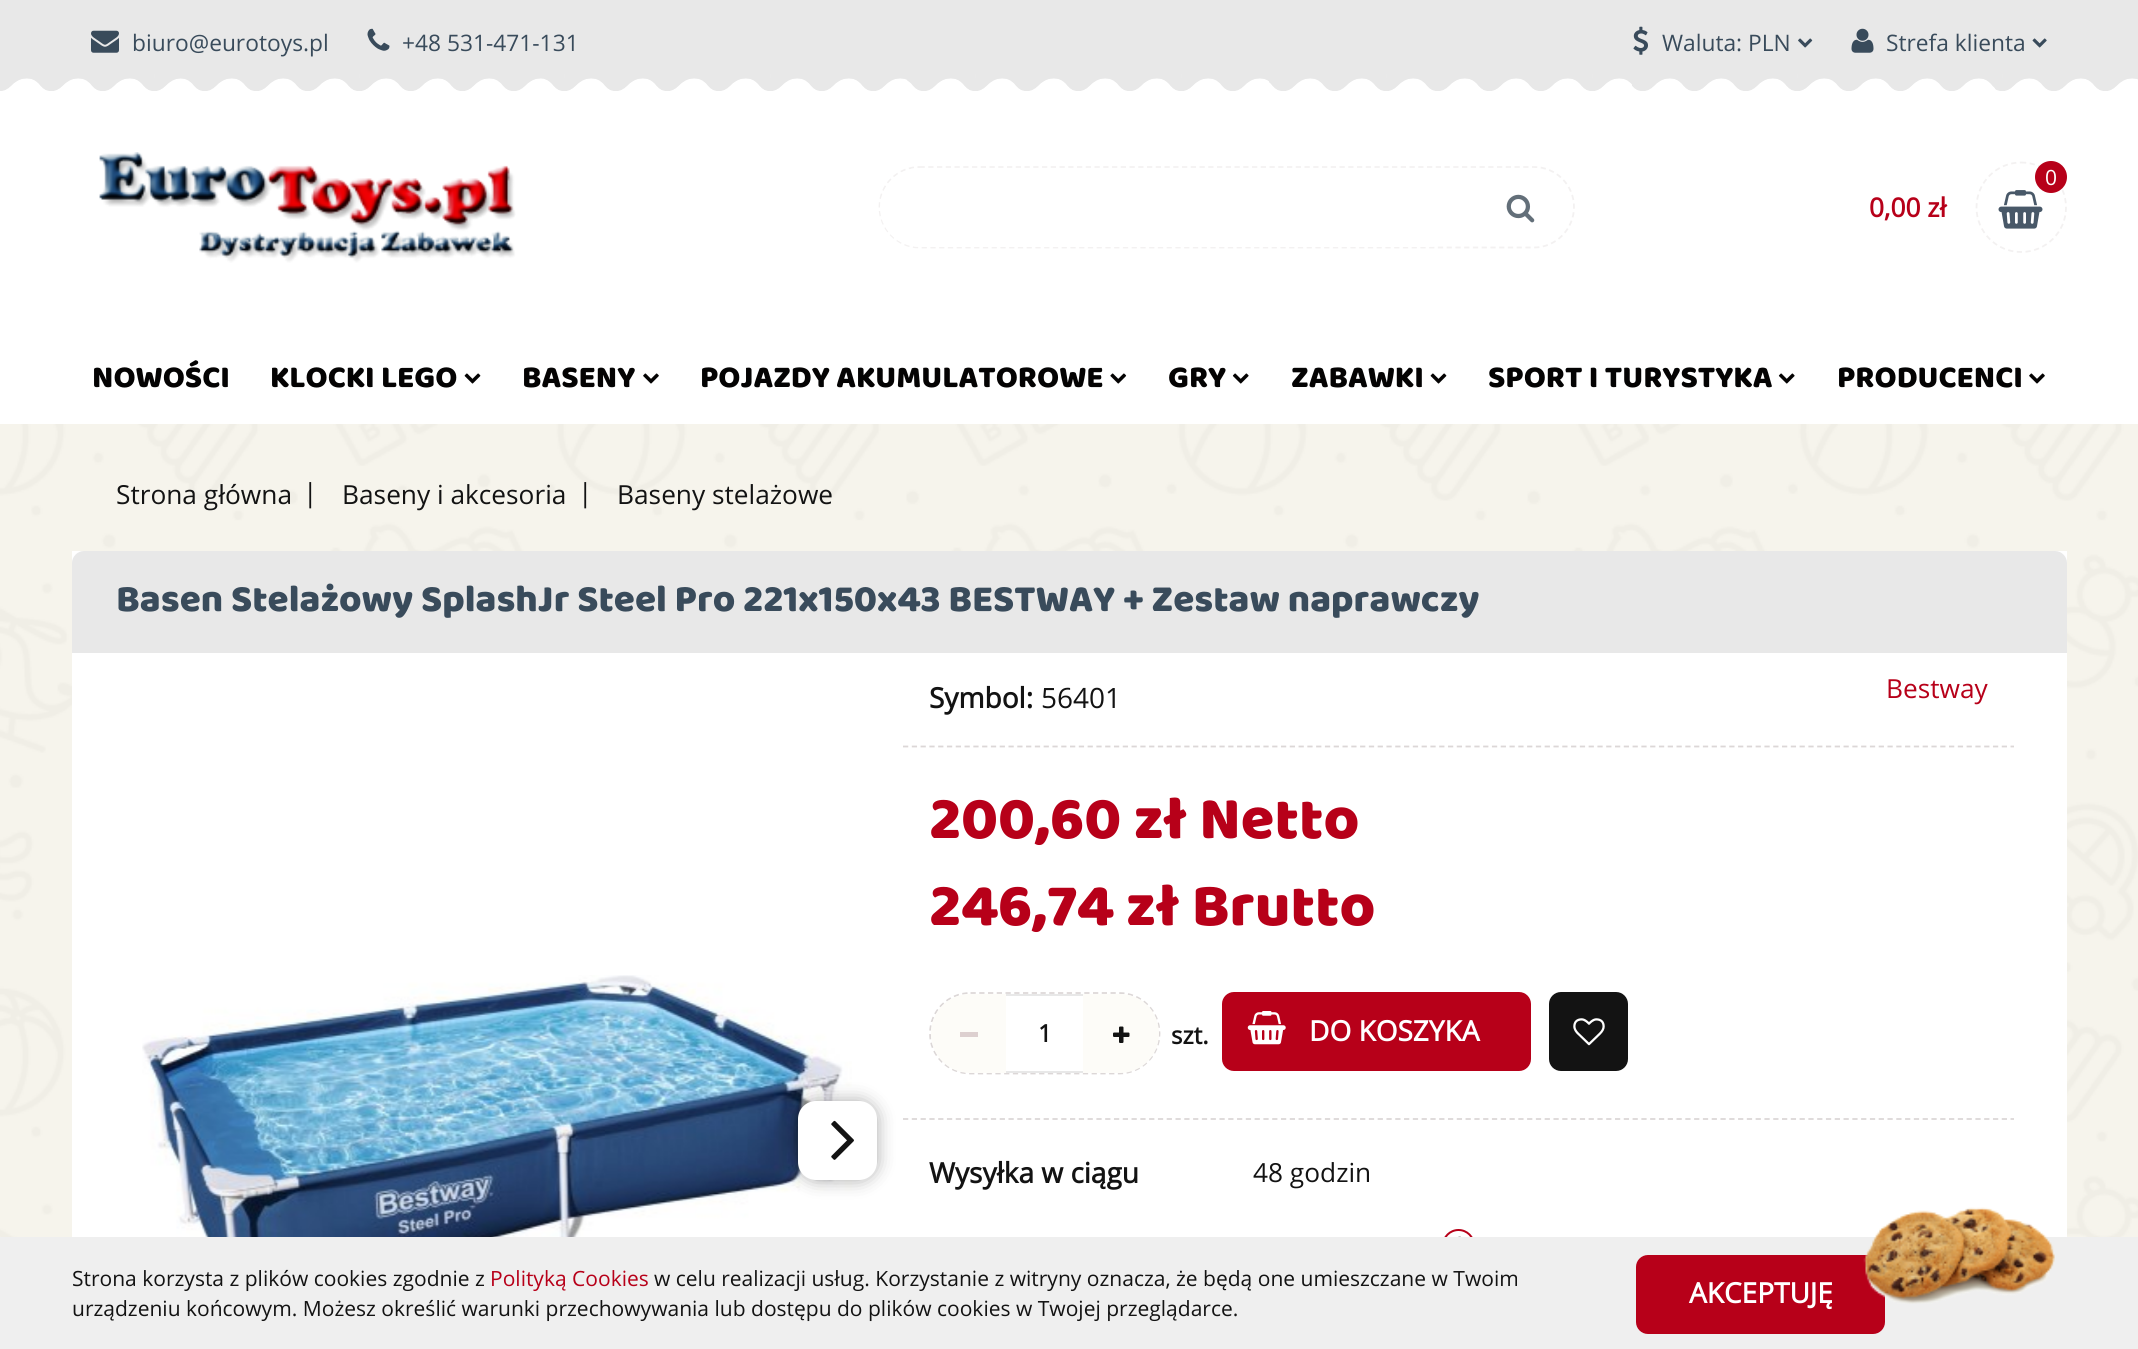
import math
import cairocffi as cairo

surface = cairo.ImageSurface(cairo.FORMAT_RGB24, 2138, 1349)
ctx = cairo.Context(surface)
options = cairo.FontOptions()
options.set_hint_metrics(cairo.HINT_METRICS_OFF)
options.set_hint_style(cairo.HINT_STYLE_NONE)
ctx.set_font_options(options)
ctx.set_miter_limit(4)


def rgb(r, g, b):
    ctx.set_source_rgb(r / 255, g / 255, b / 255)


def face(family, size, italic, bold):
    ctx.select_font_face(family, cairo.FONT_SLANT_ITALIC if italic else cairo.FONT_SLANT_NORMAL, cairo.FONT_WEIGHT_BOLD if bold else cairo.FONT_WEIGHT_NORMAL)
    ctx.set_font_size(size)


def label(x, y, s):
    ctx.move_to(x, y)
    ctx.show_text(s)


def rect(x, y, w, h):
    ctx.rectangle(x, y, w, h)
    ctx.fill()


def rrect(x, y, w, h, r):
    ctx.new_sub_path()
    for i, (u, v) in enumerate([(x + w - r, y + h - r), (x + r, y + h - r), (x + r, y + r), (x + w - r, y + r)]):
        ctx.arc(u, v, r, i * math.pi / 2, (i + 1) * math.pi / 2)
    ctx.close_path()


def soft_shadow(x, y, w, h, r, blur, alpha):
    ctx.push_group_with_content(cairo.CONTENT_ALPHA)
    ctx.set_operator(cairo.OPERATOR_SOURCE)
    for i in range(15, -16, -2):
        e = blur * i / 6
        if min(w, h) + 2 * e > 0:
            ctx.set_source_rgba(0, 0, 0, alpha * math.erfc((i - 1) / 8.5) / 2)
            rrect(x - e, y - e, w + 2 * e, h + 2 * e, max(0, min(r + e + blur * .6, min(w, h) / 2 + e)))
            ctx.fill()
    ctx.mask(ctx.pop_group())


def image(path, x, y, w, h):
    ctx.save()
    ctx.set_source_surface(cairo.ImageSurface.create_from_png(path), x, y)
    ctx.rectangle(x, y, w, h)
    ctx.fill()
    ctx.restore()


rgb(255, 255, 255)
ctx.paint()
image('image0.png', 0, 424, 2138, 813)
rgb(232, 232, 232)
rect(0, 0, 2138, 74)
image('image1.png', 91, 30, 28, 23)
face('Open Sans', 22.75, 0, 0)
rgb(57, 75, 91)
label(132, 51, 'biuro@eurotoys.pl')
image('image2.png', 367, 28, 23, 23)
label(402, 51, '+48 531-471-131')
image('image3.png', 1633, 26, 15, 29)
label(1662, 51, 'Waluta: PLN')
image('image4.png', 1798, 38, 15, 10)
image('image5.png', 1851, 28, 23, 25)
label(1886, 51, 'Strefa klienta')
image('image6.png', 2032, 38, 15, 10)
image('image7.png', 0, 74, 2138, 17)
image('image8.png', 99, 152, 417, 111)
ctx.new_path()
ctx.move_to(919.5, 167)
ctx.line_to(1534, 167)
ctx.curve_to(1556, 167, 1574, 185, 1574, 207)
ctx.curve_to(1574, 229, 1556, 247.5, 1534, 247.5)
ctx.line_to(919.5, 247.5)
ctx.curve_to(897.5, 247.5, 879.5, 229, 879.5, 207)
ctx.curve_to(879.5, 185, 897.5, 167, 919.5, 167)
ctx.close_path()
rgb(243, 241, 241)
ctx.set_line_width(1.8)
ctx.set_dash([5.25, 3.5])
ctx.stroke()
rgb(255, 255, 255)
rrect(880, 168, 588, 79, 39.5)
ctx.fill()
image('image9.png', 1506, 194, 29, 29)
ctx.new_path()
ctx.move_to(2021, 162.5)
ctx.curve_to(2046, 162.5, 2066, 182.5, 2066, 207.5)
ctx.curve_to(2066, 232, 2046, 252, 2021, 252)
ctx.curve_to(1996.5, 252, 1976.5, 232, 1976.5, 207.5)
ctx.curve_to(1976.5, 182.5, 1996.5, 162.5, 2021, 162.5)
ctx.close_path()
rgb(243, 241, 241)
ctx.stroke()
image('image10.png', 1998, 190, 45, 39)
rgb(183, 0, 25)
ctx.arc(2051, 177, 16, 0, 2 * math.pi)
ctx.fill()
face('Open Sans', 21, 0, 0)
rgb(255, 255, 255)
label(2045, 185, '0')
face('Open Sans', 26.25, 0, 1)
rgb(183, 0, 25)
label(1869, 217, '0,00 zł')
face('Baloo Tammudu', 31.5, 0, 0)
rgb(4, 3, 3)
label(92, 387, 'NOWOŚCI')
label(270, 387, 'KLOCKI LEGO')
image('image11.png', 464, 373, 17, 11)
label(522, 387, 'BASENY')
image('image12.png', 643, 373, 16, 11)
label(700, 387, 'POJAZDY AKUMULATOROWE')
image('image13.png', 1110, 373, 17, 11)
label(1168, 387, 'GRY')
image('image14.png', 1232, 373, 17, 11)
label(1291, 387, 'ZABAWKI')
image('image11.png', 1430, 373, 17, 11)
label(1488, 387, 'SPORT I TURYSTYKA')
image('image14.png', 1778, 373, 17, 11)
label(1837, 387, 'PRODUCENCI')
image('image15.png', 2029, 373, 16, 11)
face('Open Sans', 26.25, 0, 0)
rgb(19, 19, 19)
label(116, 504, 'Strona główna')
label(303, 502, '|')
label(342, 504, 'Baseny i akcesoria')
label(578, 502, '|')
label(617, 504, 'Baseny stelażowe')
rgb(255, 255, 255)
rect(72, 551, 1995, 686)
rgb(232, 232, 232)
ctx.new_path()
ctx.move_to(84, 551)
ctx.line_to(2055, 551)
ctx.curve_to(2061.5, 551, 2067, 556.5, 2067, 563)
ctx.line_to(2067, 653)
ctx.line_to(72, 653)
ctx.line_to(72, 563)
ctx.curve_to(72, 556.5, 77.5, 551, 84, 551)
ctx.close_path()
ctx.fill()
face('Baloo Tammudu', 38.5, 0, 0)
rgb(57, 75, 91)
label(116, 611, 'Basen Stelażowy SplashJr Steel Pro 221x150x43 BESTWAY + Zestaw naprawczy')
image('image16.png', 142, 975, 710, 262)
ctx.new_path()
ctx.move_to(903, 1119)
ctx.line_to(2014, 1119)
rgb(220, 215, 215)
ctx.set_dash([5.25, 3.54])
ctx.stroke()
rgb(0, 0, 0)
soft_shadow(798, 1101, 79, 79, 18, 9, 0.33)
rgb(255, 255, 255)
rrect(798, 1101, 79, 79, 18)
ctx.fill()
image('image17.png', 831, 1120, 23, 40)
ctx.new_path()
ctx.move_to(903, 746.5)
ctx.line_to(2014, 746.5)
rgb(220, 215, 215)
ctx.stroke()
face('Open Sans', 28, 0, 1)
rgb(19, 19, 19)
label(929, 708, 'Symbol:')
face('Open Sans', 28, 0, 0)
label(1041, 708, '56401')
face('Open Sans', 26.25, 0, 0)
rgb(183, 0, 25)
label(1886, 698, 'Bestway')
face('Baloo Tammudu', 61.25, 0, 0)
label(929, 838, '200,60 zł Netto')
label(929, 925, '246,74 zł Brutto')
ctx.new_path()
ctx.move_to(970.5, 993)
ctx.line_to(1119, 993)
ctx.curve_to(1141.5, 993, 1159.5, 1011, 1159.5, 1033.5)
ctx.curve_to(1159.5, 1055.5, 1141.5, 1073.5, 1119, 1073.5)
ctx.line_to(970.5, 1073.5)
ctx.curve_to(948, 1073.5, 930, 1055.5, 930, 1033.5)
ctx.curve_to(930, 1011, 948, 993, 970.5, 993)
ctx.close_path()
rgb(220, 215, 215)
ctx.set_dash([5.25, 3.5])
ctx.stroke()
rgb(253, 252, 248)
ctx.new_path()
ctx.move_to(970, 994)
ctx.line_to(1006, 994)
ctx.line_to(1006, 1073)
ctx.line_to(970, 1073)
ctx.curve_to(948.5, 1073, 931, 1055.5, 931, 1034)
ctx.line_to(931, 1033)
ctx.curve_to(931, 1011.5, 948.5, 994, 970, 994)
ctx.close_path()
ctx.fill()
rgb(221, 208, 208)
rect(960, 1032, 18, 5)
rgb(232, 232, 232)
rect(1006, 994, 77, 2)
rect(1006, 1071, 77, 2)
face('Open Sans', 24, 0, 1)
rgb(19, 19, 19)
label(1038, 1042, '1')
rgb(253, 252, 248)
ctx.new_path()
ctx.move_to(1083, 994)
ctx.line_to(1120, 994)
ctx.curve_to(1141.5, 994, 1159, 1011.5, 1159, 1033)
ctx.line_to(1159, 1034)
ctx.curve_to(1159, 1055.5, 1141.5, 1073, 1120, 1073)
ctx.line_to(1083, 1073)
ctx.close_path()
ctx.fill()
image('image18.png', 1113, 1026, 17, 17)
rgb(19, 19, 19)
label(1171, 1044, 'szt.')
rgb(183, 0, 25)
rrect(1222, 992, 309, 79, 12)
ctx.fill()
image('image19.png', 1247, 1011, 39, 34)
face('Open Sans', 28, 0, 1)
rgb(255, 255, 255)
label(1309, 1041, 'DO KOSZYKA')
rgb(19, 19, 19)
rrect(1549, 992, 79, 79, 12)
ctx.fill()
image('image20.png', 1573, 1018, 32, 28)
label(929, 1183, 'Wysyłka w ciągu')
face('Open Sans', 26.25, 0, 0)
label(1253, 1182, '48 godzin')
ctx.new_path()
ctx.arc(1458.5, 1245.5, 15.5, 0, 2 * math.pi)
rgb(183, 0, 25)
ctx.set_line_width(2)
ctx.set_dash([])
ctx.stroke()
image('image21.png', 1458, 1236, 3, 1)
rgb(239, 239, 239)
rect(0, 1237, 2138, 112)
face('Open Sans', 21, 0, 0)
rgb(19, 19, 19)
label(72, 1286, 'Strona korzysta z plików cookies zgodnie z')
rgb(183, 0, 25)
label(490, 1286, 'Polityką Cookies')
rgb(19, 19, 19)
label(654, 1286, 'w celu realizacji usług. Korzystanie z witryny oznacza, że będą one umieszczane w Twoim')
label(72, 1316, 'urządzeniu końcowym. Możesz określić warunki przechowywania lub dostępu do plików cookies w Twojej przeglądarce.')
rgb(183, 0, 25)
rrect(1636, 1255, 249, 79, 12)
ctx.fill()
face('Open Sans', 28, 0, 1)
rgb(255, 255, 255)
label(1689, 1303, 'AKCEPTUJĘ')
image('image22.png', 1863, 1207, 192, 97)
surface.write_to_png('render.png')
